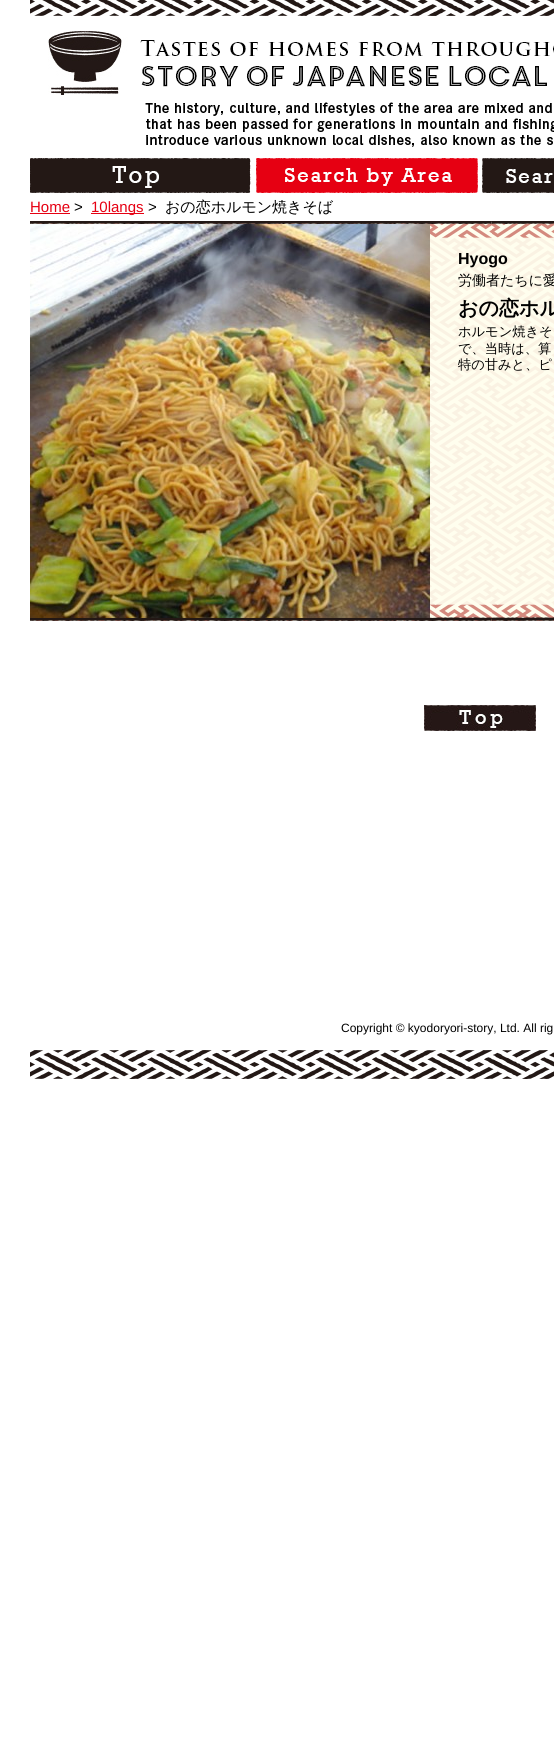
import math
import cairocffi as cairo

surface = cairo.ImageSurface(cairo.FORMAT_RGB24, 554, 1749)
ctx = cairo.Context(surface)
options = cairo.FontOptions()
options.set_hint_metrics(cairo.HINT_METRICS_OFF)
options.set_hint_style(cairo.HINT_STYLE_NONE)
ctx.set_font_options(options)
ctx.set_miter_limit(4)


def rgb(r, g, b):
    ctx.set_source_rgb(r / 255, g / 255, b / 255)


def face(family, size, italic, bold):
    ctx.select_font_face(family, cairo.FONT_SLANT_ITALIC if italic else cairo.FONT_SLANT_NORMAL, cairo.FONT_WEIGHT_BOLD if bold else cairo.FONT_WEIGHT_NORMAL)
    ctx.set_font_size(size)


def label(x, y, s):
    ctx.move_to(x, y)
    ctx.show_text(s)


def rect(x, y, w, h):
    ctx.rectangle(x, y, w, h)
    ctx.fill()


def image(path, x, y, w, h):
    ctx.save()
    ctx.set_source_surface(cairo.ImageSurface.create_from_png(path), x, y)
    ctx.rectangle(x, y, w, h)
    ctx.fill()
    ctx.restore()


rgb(255, 255, 255)
ctx.paint()
image('image0.png', 30, 0, 524, 16)
image('image1.png', 48, 31, 506, 64)
image('image2.png', 145, 102, 409, 45)
image('image3.png', 30, 158, 221, 35)
image('image4.png', 256, 158, 222, 35)
image('image5.png', 482, 158, 72, 35)
face('Liberation Sans', 15, 0, 0)
rgb(230, 0, 18)
label(30, 212, 'Home')
rect(30, 213, 40, 1)
rgb(0, 0, 0)
label(74, 212, '>')
rgb(230, 0, 18)
rect(91, 213, 53, 1)
label(91, 212, '10langs')
rgb(0, 0, 0)
label(148, 212, '>')
face('WenQuanYi Zen Hei Medium', 15, 0, 0)
label(165, 212, 'おの恋ホルモン焼きそば')
image('image6.png', 30, 221, 524, 400)
image('image7.png', 30, 224, 400, 394)
face('Liberation Sans', 16, 0, 1)
label(458, 264, 'Hyogo')
face('WenQuanYi Zen Hei Medium', 14, 0, 0)
label(458, 285, '労働者たちに愛')
face('WenQuanYi Zen Hei', 20, 0, 1)
label(458, 315, 'おの恋ホル')
face('WenQuanYi Zen Hei Medium', 13.25, 0, 0)
label(458, 336, 'ホルモン焼きそ')
label(458, 353, 'で、当時は、算')
label(458, 369, '特の甘みと、ピ')
image('image8.png', 424, 705, 112, 26)
image('image9.png', 30, 1050, 524, 29)
face('Liberation Sans', 12, 0, 0)
label(341, 1032, 'Copyright © kyodoryori-story, Ltd. All rig')
surface.write_to_png('render.png')
